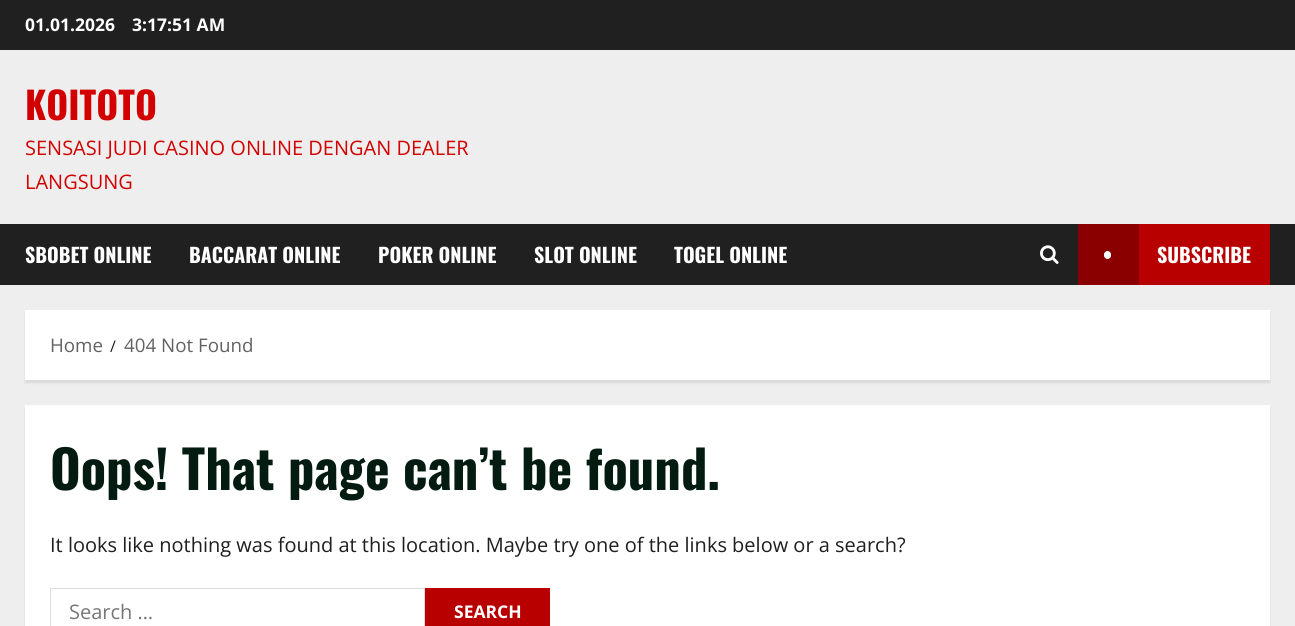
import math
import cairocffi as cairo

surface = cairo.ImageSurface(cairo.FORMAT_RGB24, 1295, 626)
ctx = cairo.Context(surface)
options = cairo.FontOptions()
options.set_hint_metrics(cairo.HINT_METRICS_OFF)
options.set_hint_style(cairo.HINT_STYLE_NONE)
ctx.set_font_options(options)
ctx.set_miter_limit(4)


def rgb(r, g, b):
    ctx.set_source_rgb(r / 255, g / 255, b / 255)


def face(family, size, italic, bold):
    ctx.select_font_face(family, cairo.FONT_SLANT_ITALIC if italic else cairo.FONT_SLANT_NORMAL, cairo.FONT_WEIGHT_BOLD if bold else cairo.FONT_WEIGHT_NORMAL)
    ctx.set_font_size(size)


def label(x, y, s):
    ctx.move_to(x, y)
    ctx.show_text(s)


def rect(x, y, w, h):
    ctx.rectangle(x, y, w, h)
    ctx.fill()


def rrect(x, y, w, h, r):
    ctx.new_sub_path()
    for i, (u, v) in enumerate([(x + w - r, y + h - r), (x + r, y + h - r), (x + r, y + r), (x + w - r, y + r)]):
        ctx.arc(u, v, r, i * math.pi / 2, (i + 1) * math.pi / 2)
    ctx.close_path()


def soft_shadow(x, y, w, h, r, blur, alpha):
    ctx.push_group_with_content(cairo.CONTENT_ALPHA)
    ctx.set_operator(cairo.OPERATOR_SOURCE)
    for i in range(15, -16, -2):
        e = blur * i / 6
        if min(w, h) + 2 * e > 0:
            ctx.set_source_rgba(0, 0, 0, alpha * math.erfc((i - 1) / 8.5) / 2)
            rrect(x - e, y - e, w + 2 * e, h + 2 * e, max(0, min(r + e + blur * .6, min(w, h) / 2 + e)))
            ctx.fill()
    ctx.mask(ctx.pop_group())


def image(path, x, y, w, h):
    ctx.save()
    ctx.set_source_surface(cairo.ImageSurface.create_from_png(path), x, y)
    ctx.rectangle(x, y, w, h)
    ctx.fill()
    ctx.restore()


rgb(238, 238, 238)
ctx.paint()
rgb(32, 32, 32)
rect(0, 0, 1295, 50)
face('Open Sans', 17.5, 0, 1)
rgb(255, 255, 255)
label(25, 31, '01.01.2026')
label(132, 31, '3:17:51 AM')
face('Oswald', 37.5, 0, 1)
rgb(211, 0, 0)
label(25, 120, 'KOITOTO')
face('Open Sans', 20, 0, 0)
label(25, 155, 'SENSASI JUDI CASINO ONLINE DENGAN DEALER')
label(25, 189, 'LANGSUNG')
rgb(32, 32, 32)
rect(0, 224, 1295, 61)
face('Oswald', 20, 0, 1)
rgb(255, 255, 255)
label(25, 263, 'SBOBET ONLINE')
label(189, 263, 'BACCARAT ONLINE')
label(378, 263, 'POKER ONLINE')
label(534, 263, 'SLOT ONLINE')
label(674, 263, 'TOGEL ONLINE')
image('image0.png', 1040, 245, 19, 19)
rgb(184, 0, 0)
rect(1139, 224, 131, 61)
rgb(138, 0, 0)
rect(1078, 224, 61, 61)
rgb(255, 255, 255)
rrect(1104, 251, 7, 8, 3.5)
ctx.fill()
label(1157, 263, 'SUBSCRIBE')
rgb(0, 0, 0)
soft_shadow(25, 313, 1245, 70, 0, 1, 0.08)
rgb(255, 255, 255)
rect(25, 310, 1245, 70)
face('Open Sans', 18.75, 0, 0)
rgb(98, 98, 98)
label(50, 352, 'Home')
face('Open Sans', 16, 0, 0)
rgb(31, 31, 31)
label(110, 352, '/')
face('Open Sans', 18.75, 0, 0)
rgb(98, 98, 98)
label(124, 352, '404 Not Found')
rgb(0, 0, 0)
soft_shadow(25, 408, 1245, 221, 0, 1, 0.08)
rgb(255, 255, 255)
rect(25, 405, 1245, 221)
face('Oswald', 52.5, 0, 1)
rgb(3, 27, 17)
label(50, 490, 'Oops! That page can’t be found.')
face('Open Sans', 20, 0, 0)
rgb(31, 31, 31)
label(50, 552, 'It looks like nothing was found at this location. Maybe try one of the links below or a search?')
ctx.rectangle(50.5, 588.5, 374, 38)
rgb(220, 220, 220)
ctx.set_line_width(1)
ctx.stroke()
rgb(117, 117, 117)
label(69, 619, 'Search …')
rgb(184, 0, 0)
rect(425, 588, 125, 38)
face('Open Sans', 17.5, 0, 1)
rgb(255, 255, 255)
label(454, 618, 'SEARCH')
surface.write_to_png('render.png')
